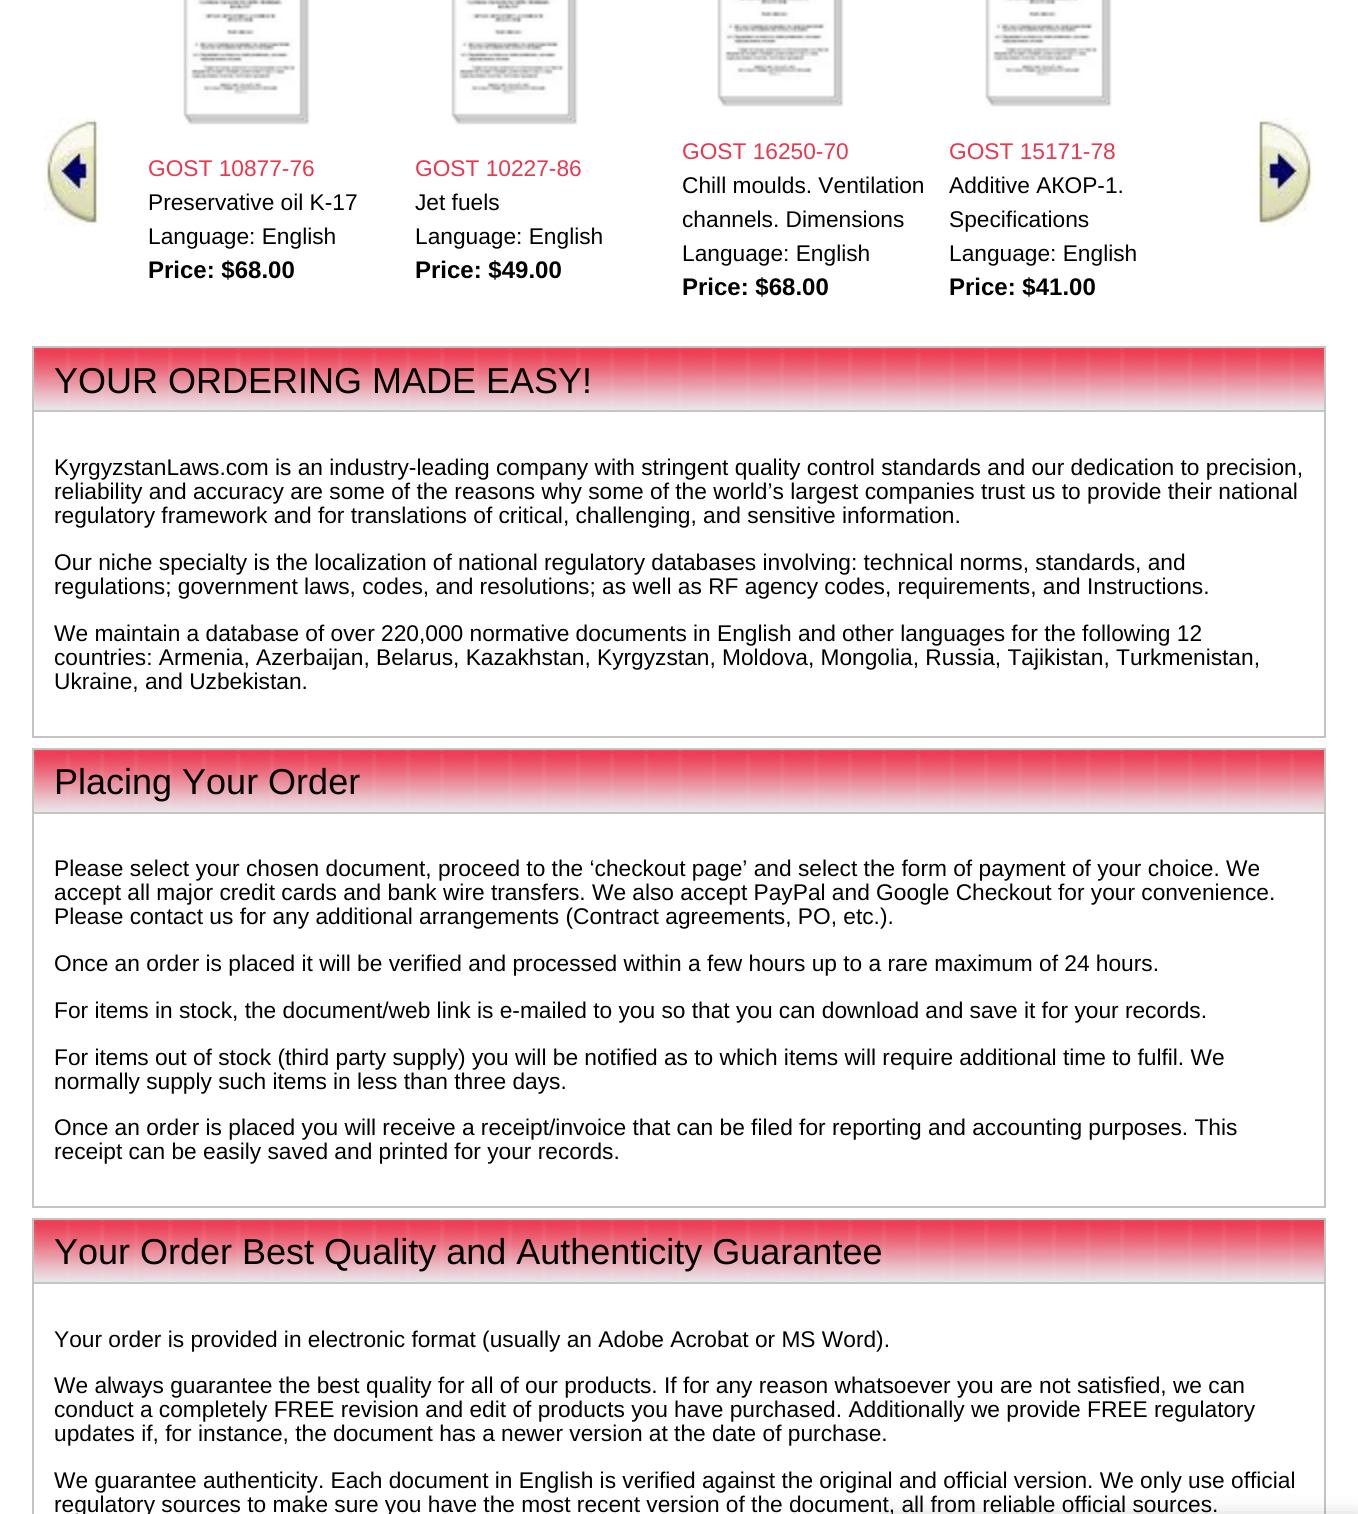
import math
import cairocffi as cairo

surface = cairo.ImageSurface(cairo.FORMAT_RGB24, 1358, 1514)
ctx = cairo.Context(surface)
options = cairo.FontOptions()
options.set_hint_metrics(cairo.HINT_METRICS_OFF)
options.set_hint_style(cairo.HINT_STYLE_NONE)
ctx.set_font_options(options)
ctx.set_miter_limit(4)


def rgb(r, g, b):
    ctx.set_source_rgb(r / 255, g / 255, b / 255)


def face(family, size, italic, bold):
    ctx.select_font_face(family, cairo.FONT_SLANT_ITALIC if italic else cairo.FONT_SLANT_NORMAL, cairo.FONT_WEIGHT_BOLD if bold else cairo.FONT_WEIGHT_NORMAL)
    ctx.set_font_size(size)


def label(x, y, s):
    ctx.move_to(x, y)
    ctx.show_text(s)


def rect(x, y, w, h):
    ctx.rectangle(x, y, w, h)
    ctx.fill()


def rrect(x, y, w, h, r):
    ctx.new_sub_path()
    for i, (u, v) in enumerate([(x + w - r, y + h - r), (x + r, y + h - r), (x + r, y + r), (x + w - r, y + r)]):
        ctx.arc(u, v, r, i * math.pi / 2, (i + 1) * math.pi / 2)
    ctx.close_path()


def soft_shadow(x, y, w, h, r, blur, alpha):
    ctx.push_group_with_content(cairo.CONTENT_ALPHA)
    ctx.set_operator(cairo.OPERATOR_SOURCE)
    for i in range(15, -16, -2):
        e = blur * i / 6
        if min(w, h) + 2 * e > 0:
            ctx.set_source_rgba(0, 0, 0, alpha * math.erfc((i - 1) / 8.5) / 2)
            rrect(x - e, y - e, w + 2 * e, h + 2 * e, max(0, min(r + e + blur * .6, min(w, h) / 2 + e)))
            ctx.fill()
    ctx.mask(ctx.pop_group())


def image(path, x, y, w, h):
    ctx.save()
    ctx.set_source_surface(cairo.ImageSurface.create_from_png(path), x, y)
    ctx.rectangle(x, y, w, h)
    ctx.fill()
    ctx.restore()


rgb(255, 255, 255)
ctx.paint()
image('image0.png', 44, 118, 56, 108)
image('image1.png', 183, 0, 127, 125)
face('Liberation Sans', 22.72, 0, 0)
rgb(236, 54, 78)
label(148, 176, 'GOST 10877-76')
rgb(0, 0, 0)
label(148, 210, 'Preservative oil K-17')
label(148, 244, 'Language: English')
face('Liberation Sans', 24, 0, 1)
label(148, 278, 'Price: $68.00')
image('image1.png', 451, 0, 127, 125)
face('Liberation Sans', 22.72, 0, 0)
rgb(236, 54, 78)
label(415, 176, 'GOST 10227-86')
rgb(0, 0, 0)
label(415, 210, 'Jet fuels')
label(415, 244, 'Language: English')
face('Liberation Sans', 24, 0, 1)
label(415, 278, 'Price: $49.00')
image('image2.png', 717, 0, 127, 107)
face('Liberation Sans', 22.72, 0, 0)
rgb(236, 54, 78)
label(682, 159, 'GOST 16250-70')
rgb(0, 0, 0)
label(682, 193, 'Chill moulds. Ventilation')
label(682, 227, 'channels. Dimensions')
label(682, 261, 'Language: English')
face('Liberation Sans', 24, 0, 1)
label(682, 295, 'Price: $68.00')
image('image2.png', 985, 0, 127, 107)
face('Liberation Sans', 22.72, 0, 0)
rgb(236, 54, 78)
label(949, 159, 'GOST 15171-78')
rgb(0, 0, 0)
label(949, 193, 'Additive АКОР-1.')
label(949, 227, 'Specifications')
label(949, 261, 'Language: English')
face('Liberation Sans', 24, 0, 1)
label(949, 295, 'Price: $41.00')
image('image3.png', 1258, 118, 56, 108)
image('image4.png', 34, 348, 1290, 62)
ctx.rectangle(33, 347, 1292, 64)
rgb(195, 198, 192)
ctx.stroke()
face('Liberation Sans', 36, 0, 0)
rgb(0, 0, 0)
label(54, 393, 'YOUR ORDERING MADE EASY!')
rgb(195, 198, 192)
rect(1324, 412, 2, 326)
rect(32, 736, 1294, 2)
rect(32, 412, 2, 326)
face('Liberation Sans', 22.72, 0, 0)
rgb(0, 0, 0)
label(54, 475, 'KyrgyzstanLaws.com is an industry-leading company with stringent quality control standards and our dedication to precision,')
label(54, 499, 'reliability and accuracy are some of the reasons why some of the world’s largest companies trust us to provide their national')
label(54, 523, 'regulatory framework and for translations of critical, challenging, and sensitive information.')
label(54, 570, 'Our niche specialty is the localization of national regulatory databases involving: technical norms, standards, and')
label(54, 594, 'regulations; government laws, codes, and resolutions; as well as RF agency codes, requirements, and Instructions.')
label(54, 641, 'We maintain a database of over 220,000 normative documents in English and other languages for the following 12')
label(54, 665, 'countries: Armenia, Azerbaijan, Belarus, Kazakhstan, Kyrgyzstan, Moldova, Mongolia, Russia, Tajikistan, Turkmenistan,')
label(54, 689, 'Ukraine, and Uzbekistan.')
image('image4.png', 34, 750, 1290, 62)
ctx.rectangle(33, 749, 1292, 64)
rgb(195, 198, 192)
ctx.stroke()
face('Liberation Sans', 36, 0, 0)
rgb(0, 0, 0)
label(54, 794, 'Placing Your Order')
rgb(195, 198, 192)
rect(1324, 814, 2, 394)
rect(32, 1206, 1294, 2)
rect(32, 814, 2, 394)
face('Liberation Sans', 22.72, 0, 0)
rgb(0, 0, 0)
label(54, 876, 'Please select your chosen document, proceed to the ‘checkout page’ and select the form of payment of your choice. We')
label(54, 900, 'accept all major credit cards and bank wire transfers. We also accept PayPal and Google Checkout for your convenience.')
label(54, 924, 'Please contact us for any additional arrangements (Contract agreements, PO, etc.).')
label(54, 971, 'Once an order is placed it will be verified and processed within a few hours up to a rare maximum of 24 hours.')
label(54, 1018, 'For items in stock, the document/web link is e-mailed to you so that you can download and save it for your records.')
label(54, 1065, 'For items out of stock (third party supply) you will be notified as to which items will require additional time to fulfil. We')
label(54, 1089, 'normally supply such items in less than three days.')
label(54, 1135, 'Once an order is placed you will receive a receipt/invoice that can be filed for reporting and accounting purposes. This')
label(54, 1159, 'receipt can be easily saved and printed for your records.')
image('image4.png', 34, 1220, 1290, 62)
ctx.rectangle(33, 1219, 1292, 64)
rgb(195, 198, 192)
ctx.stroke()
face('Liberation Sans', 36, 0, 0)
rgb(0, 0, 0)
label(54, 1264, 'Your Order Best Quality and Authenticity Guarantee')
rgb(195, 198, 192)
rect(1324, 1284, 2, 230)
rect(32, 1284, 2, 230)
face('Liberation Sans', 22.72, 0, 0)
rgb(0, 0, 0)
label(54, 1347, 'Your order is provided in electronic format (usually an Adobe Acrobat or MS Word).')
label(54, 1393, 'We always guarantee the best quality for all of our products. If for any reason whatsoever you are not satisfied, we can')
label(54, 1417, 'conduct a completely FREE revision and edit of products you have purchased. Additionally we provide FREE regulatory')
label(54, 1441, 'updates if, for instance, the document has a newer version at the date of purchase.')
label(54, 1488, 'We guarantee authenticity. Each document in English is verified against the original and official version. We only use official')
label(54, 1512, 'regulatory sources to make sure you have the most recent version of the document, all from reliable official sources.')
rgb(0, 0, 0)
soft_shadow(882, 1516, 474, 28, 0, 10, 0.2)
surface.write_to_png('render.png')
